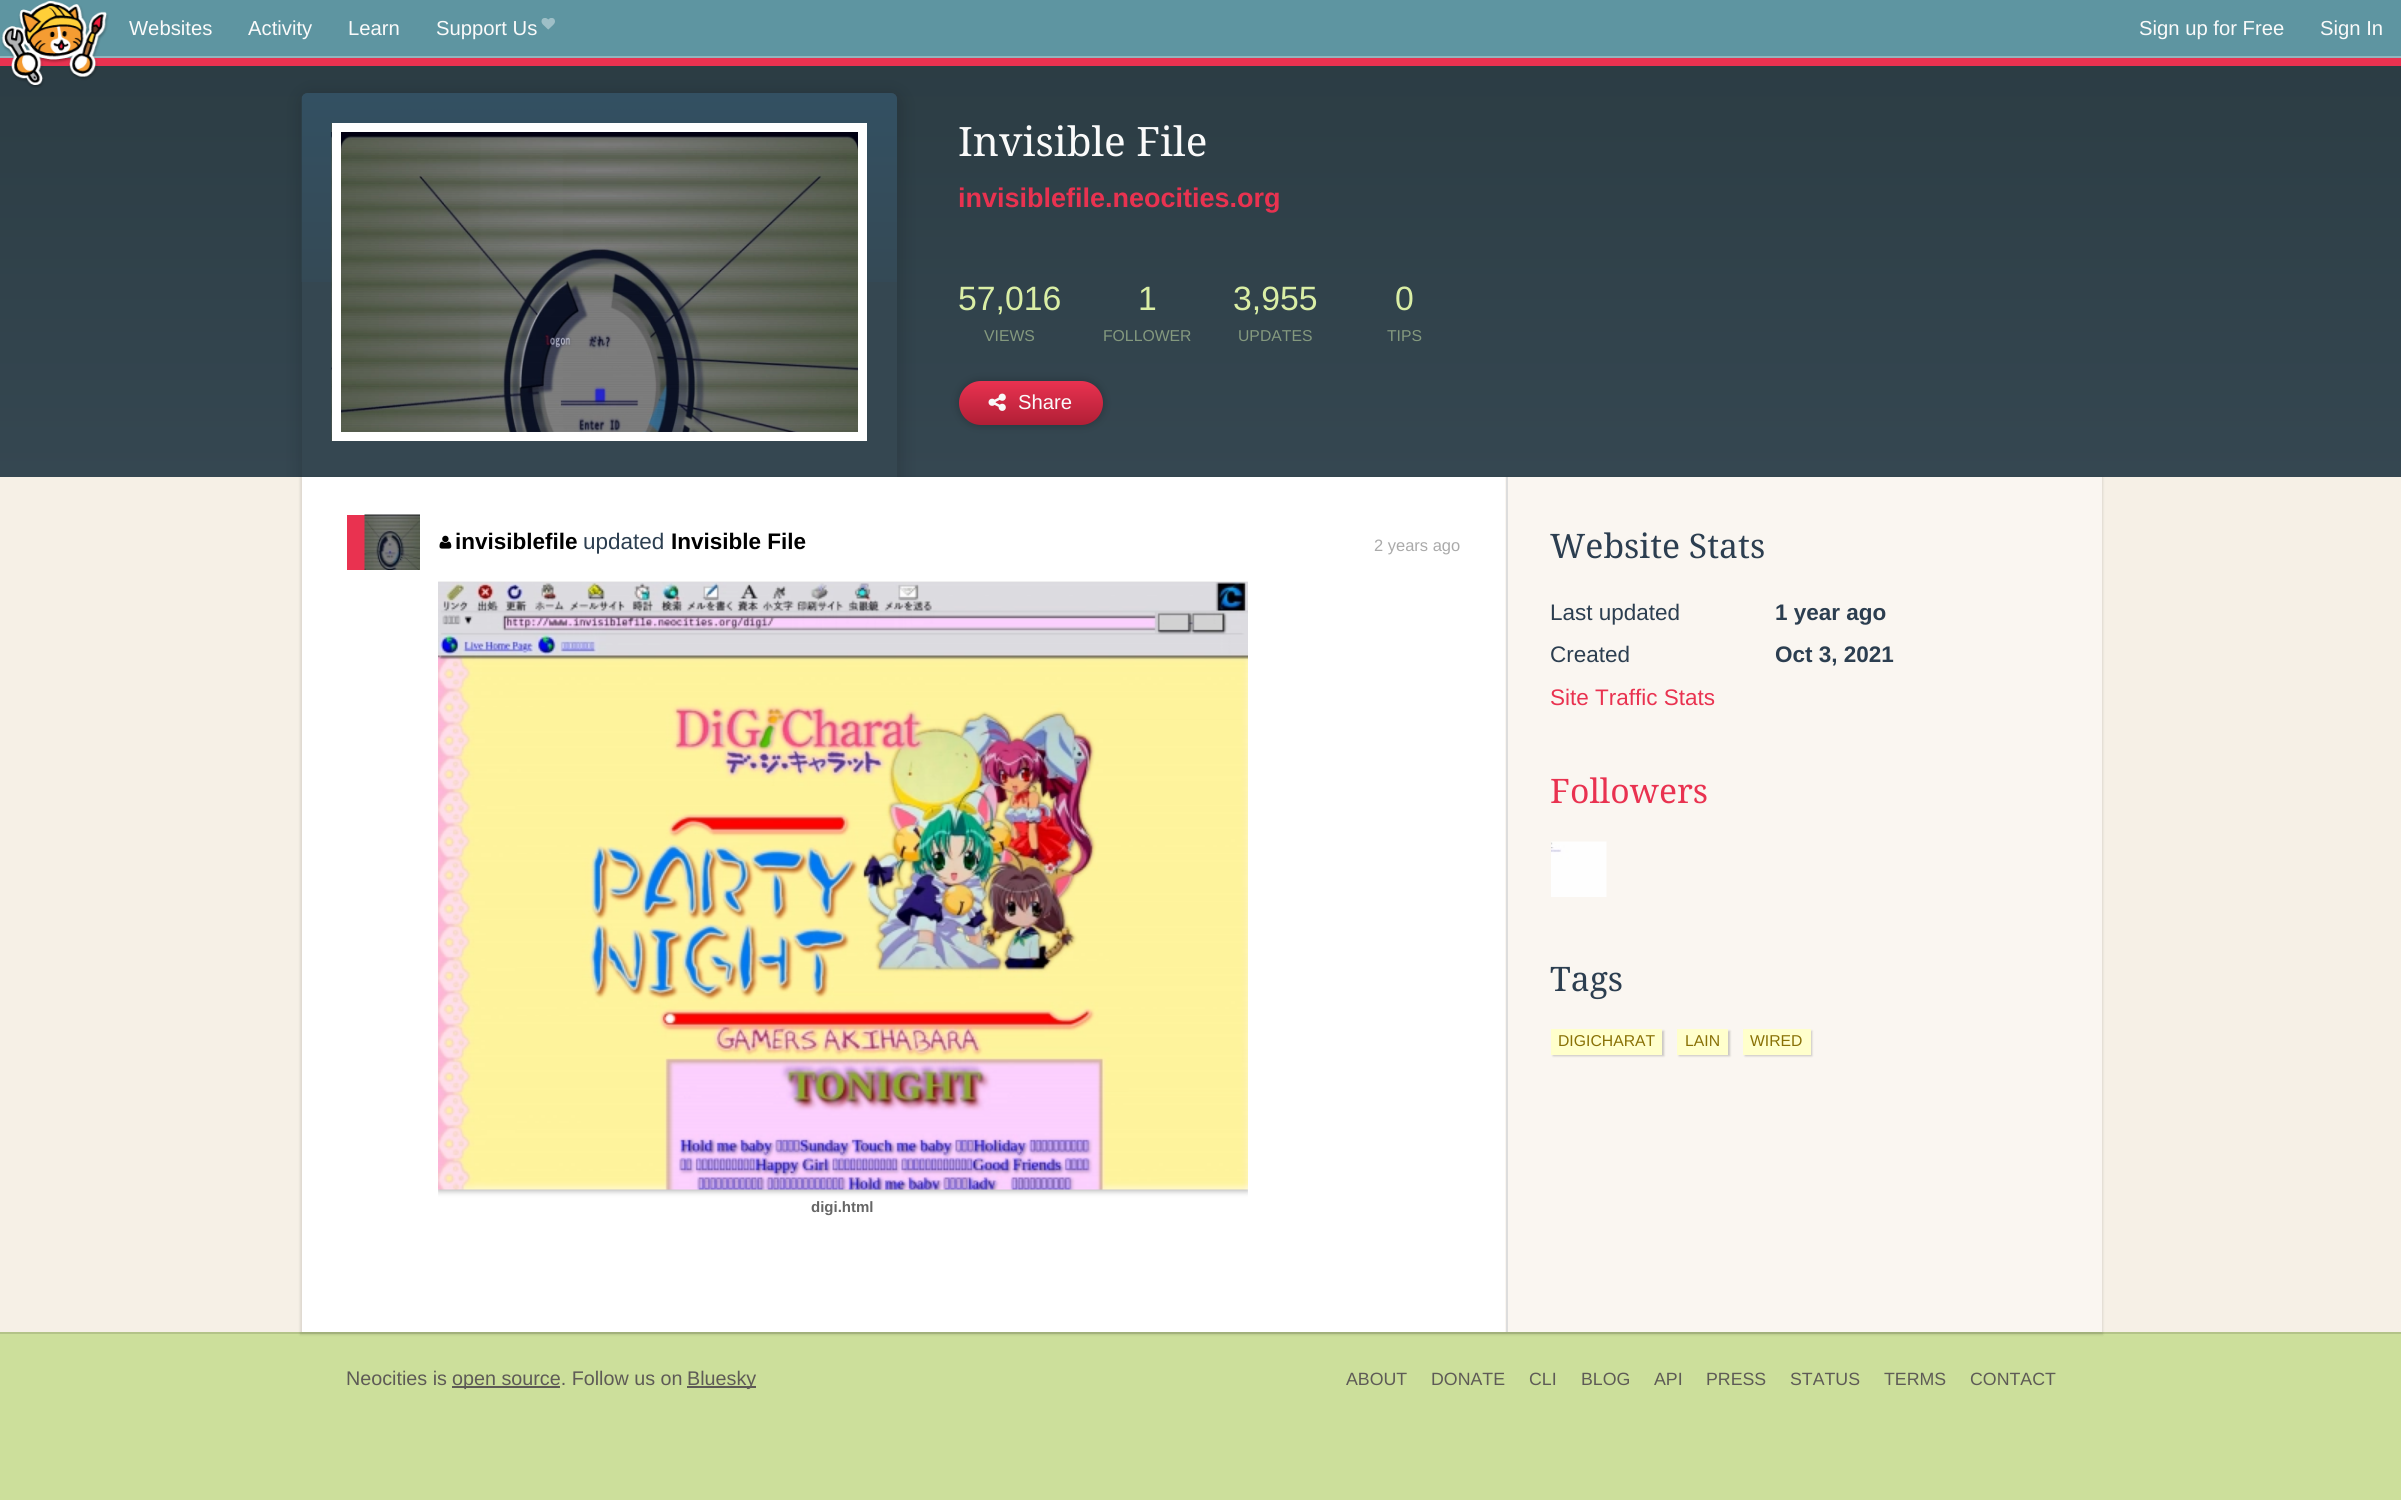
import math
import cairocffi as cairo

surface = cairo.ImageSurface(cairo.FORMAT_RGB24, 2401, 1500)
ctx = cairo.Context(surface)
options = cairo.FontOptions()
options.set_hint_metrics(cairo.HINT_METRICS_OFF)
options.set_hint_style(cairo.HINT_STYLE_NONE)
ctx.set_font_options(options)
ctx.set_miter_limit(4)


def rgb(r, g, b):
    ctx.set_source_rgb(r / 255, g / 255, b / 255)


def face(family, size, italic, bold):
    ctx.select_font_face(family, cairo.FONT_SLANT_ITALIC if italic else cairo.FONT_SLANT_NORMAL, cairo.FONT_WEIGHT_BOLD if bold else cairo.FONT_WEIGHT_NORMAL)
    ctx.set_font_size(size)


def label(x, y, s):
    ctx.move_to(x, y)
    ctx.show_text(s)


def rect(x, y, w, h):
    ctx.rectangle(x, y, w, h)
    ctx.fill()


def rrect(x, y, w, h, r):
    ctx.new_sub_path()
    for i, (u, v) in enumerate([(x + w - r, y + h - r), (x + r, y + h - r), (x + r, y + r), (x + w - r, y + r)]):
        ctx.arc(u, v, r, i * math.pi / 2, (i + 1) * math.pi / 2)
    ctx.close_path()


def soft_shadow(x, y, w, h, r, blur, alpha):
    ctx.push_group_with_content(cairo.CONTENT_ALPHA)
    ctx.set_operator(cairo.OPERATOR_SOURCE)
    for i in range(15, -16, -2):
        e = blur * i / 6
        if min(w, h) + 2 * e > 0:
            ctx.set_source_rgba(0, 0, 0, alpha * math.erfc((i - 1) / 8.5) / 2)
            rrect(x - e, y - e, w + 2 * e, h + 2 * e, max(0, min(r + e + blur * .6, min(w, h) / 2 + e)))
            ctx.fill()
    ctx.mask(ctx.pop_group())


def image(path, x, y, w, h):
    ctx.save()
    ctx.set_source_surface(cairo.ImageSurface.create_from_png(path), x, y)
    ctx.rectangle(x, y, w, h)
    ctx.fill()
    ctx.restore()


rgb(204, 223, 155)
ctx.paint()
rgb(246, 240, 230)
rect(0, 477, 2401, 855)
gradient = cairo.LinearGradient(1201, 33, 1201, 477)
gradient.add_color_stop_rgba(0, 0.169, 0.235, 0.263, 1)
gradient.add_color_stop_rgba(1, 0.208, 0.278, 0.318, 1)
ctx.set_source(gradient)
rect(0, 66, 2401, 411)
rgb(179, 195, 136)
rect(0, 1332, 2401, 2)
ctx.save()
ctx.rectangle(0, 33, 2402, 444)
ctx.clip()
rgb(0, 0, 0)
soft_shadow(300, 93, 602, 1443, 9, 9, 0.15)
ctx.restore()
rgb(233, 50, 80)
rect(0, 58, 2401, 8)
rgb(94, 149, 161)
rect(0, 0, 2401, 56)
rgb(146, 180, 189)
rect(0, 56, 2401, 2)
image('image0.png', 1, 0, 108, 88)
face('Liberation Sans', 20.25, 0, 0)
rgb(250, 250, 250)
label(129, 35, 'Websites')
label(248, 35, 'Activity')
label(348, 35, 'Learn')
label(436, 35, 'Support Us')
image('image1.png', 541, 18, 14, 12)
label(2139, 35, 'Sign up for Free')
label(2320, 35, 'Sign In')
rgb(53, 71, 81)
ctx.new_path()
ctx.move_to(308, 93)
ctx.line_to(891, 93)
ctx.curve_to(894.5, 93, 897, 95.5, 897, 99)
ctx.line_to(897, 477)
ctx.line_to(302, 477)
ctx.line_to(302, 99)
ctx.curve_to(302, 95.5, 304.5, 93, 308, 93)
ctx.close_path()
ctx.fill()
image('image2.png', 301, 93, 596, 189)
image('image3.png', 331, 123, 527, 318)
ctx.rectangle(336.5, 127.5, 526, 309)
rgb(255, 255, 255)
ctx.set_line_width(9)
ctx.stroke()
face('Droid Serif', 40.5, 0, 0)
rgb(250, 250, 250)
label(958, 156, 'Invisible File')
face('Liberation Sans', 27, 0, 1)
rgb(233, 50, 80)
label(958, 207, 'invisiblefile.neocities.org')
face('Liberation Sans', 33.75, 0, 0)
rgb(218, 238, 165)
label(958, 310, '57,016')
face('Liberation Sans', 15.75, 0, 0)
rgb(132, 153, 126)
label(984, 341, 'VIEWS')
face('Liberation Sans', 33.75, 0, 0)
rgb(218, 238, 165)
label(1138, 310, '1')
face('Liberation Sans', 15.75, 0, 0)
rgb(132, 153, 126)
label(1103, 341, 'FOLLOWER')
face('Liberation Sans', 33.75, 0, 0)
rgb(218, 238, 165)
label(1233, 310, '3,955')
face('Liberation Sans', 15.75, 0, 0)
rgb(132, 153, 126)
label(1238, 341, 'UPDATES')
face('Liberation Sans', 33.75, 0, 0)
rgb(218, 238, 165)
label(1395, 310, '0')
face('Liberation Sans', 15.75, 0, 0)
rgb(132, 153, 126)
label(1387, 341, 'TIPS')
rgb(0, 0, 0)
soft_shadow(959, 381, 144, 44, 22, 4.5, 0.25)
gradient = cairo.LinearGradient(1031, 381, 1031, 425)
gradient.add_color_stop_rgba(0, 0.914, 0.196, 0.314, 1)
gradient.add_color_stop_rgba(1, 0.694, 0.122, 0.212, 1)
ctx.set_source(gradient)
rrect(959, 381, 144, 44, 22)
ctx.fill()
image('image4.png', 988, 393, 18, 18)
face('Liberation Sans', 20.25, 0, 0)
rgb(250, 250, 250)
label(1018, 409, 'Share')
rgb(0, 0, 0)
soft_shadow(300, 477, 1803, 858, 0, 1, 0.1)
rgb(250, 246, 241)
rect(1505, 477, 597, 855)
rgb(221, 221, 221)
rect(1506, 477, 2, 855)
rgb(255, 255, 255)
rect(302, 477, 1203, 855)
rgb(233, 50, 80)
rect(347, 515, 18, 55)
image('image5.png', 364, 514, 56, 56)
image('image6.png', 439, 535, 13, 14)
face('Liberation Sans', 22.5, 0, 1)
rgb(0, 0, 0)
label(455, 549, 'invisiblefile')
face('Liberation Sans', 22.5, 0, 0)
rgb(44, 62, 80)
label(583, 549, 'updated')
face('Liberation Sans', 22.5, 0, 1)
rgb(0, 0, 0)
label(671, 549, 'Invisible File')
face('Liberation Sans', 16.5, 0, 0)
rgb(170, 170, 170)
label(1374, 551, '2 years ago')
ctx.save()
ctx.rectangle(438, 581, 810, 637)
ctx.clip()
rgb(0, 0, 0)
soft_shadow(438, 584, 810, 607, 0, 3, 0.3)
ctx.restore()
image('image7.png', 438, 582, 810, 608)
face('Liberation Sans', 15, 0, 1)
rgb(102, 102, 102)
label(811, 1212, 'digi.html')
face('Droid Serif', 33.75, 0, 0)
rgb(44, 62, 80)
label(1550, 558, 'Website Stats')
face('Liberation Sans', 22.5, 0, 0)
label(1550, 620, 'Last updated')
face('Liberation Sans', 22.5, 0, 1)
label(1775, 620, '1 year ago')
face('Liberation Sans', 22.5, 0, 0)
label(1550, 662, 'Created')
face('Liberation Sans', 22.5, 0, 1)
label(1775, 662, 'Oct 3, 2021')
face('Liberation Sans', 22.5, 0, 0)
rgb(233, 50, 80)
label(1550, 705, 'Site Traffic Stats')
face('Droid Serif', 33.75, 0, 0)
label(1550, 803, 'Followers')
image('image8.png', 1551, 841, 56, 56)
rgb(44, 62, 80)
label(1550, 991, 'Tags')
rgb(0, 0, 0)
soft_shadow(1553, 1031, 111, 25, 0, 1, 0.2)
rgb(255, 255, 204)
rect(1551, 1029, 111, 26)
face('Liberation Sans', 15.75, 0, 0)
rgb(137, 113, 6)
label(1558, 1046, 'DIGICHARAT')
rgb(0, 0, 0)
soft_shadow(1679, 1031, 51, 25, 0, 1, 0.2)
rgb(255, 255, 204)
rect(1677, 1029, 51, 26)
rgb(137, 113, 6)
label(1685, 1046, 'LAIN')
rgb(0, 0, 0)
soft_shadow(1745, 1031, 67, 25, 0, 1, 0.2)
rgb(255, 255, 204)
rect(1743, 1029, 68, 26)
rgb(137, 113, 6)
label(1750, 1046, 'WIRED')
face('Liberation Sans', 19.75, 0, 0)
rgb(94, 91, 86)
label(346, 1385, 'Neocities is')
rect(452, 1386, 108, 2)
label(452, 1385, 'open source. Follow us on')
rect(687, 1386, 69, 2)
label(687, 1385, 'Bluesky')
face('Liberation Sans', 17.75, 0, 0)
label(1346, 1385, 'ABOUT')
label(1431, 1385, 'DONATE')
label(1529, 1385, 'CLI')
label(1581, 1385, 'BLOG')
label(1654, 1385, 'API')
label(1706, 1385, 'PRESS')
label(1790, 1385, 'STATUS')
label(1884, 1385, 'TERMS')
label(1970, 1385, 'CONTACT')
surface.write_to_png('render.png')
